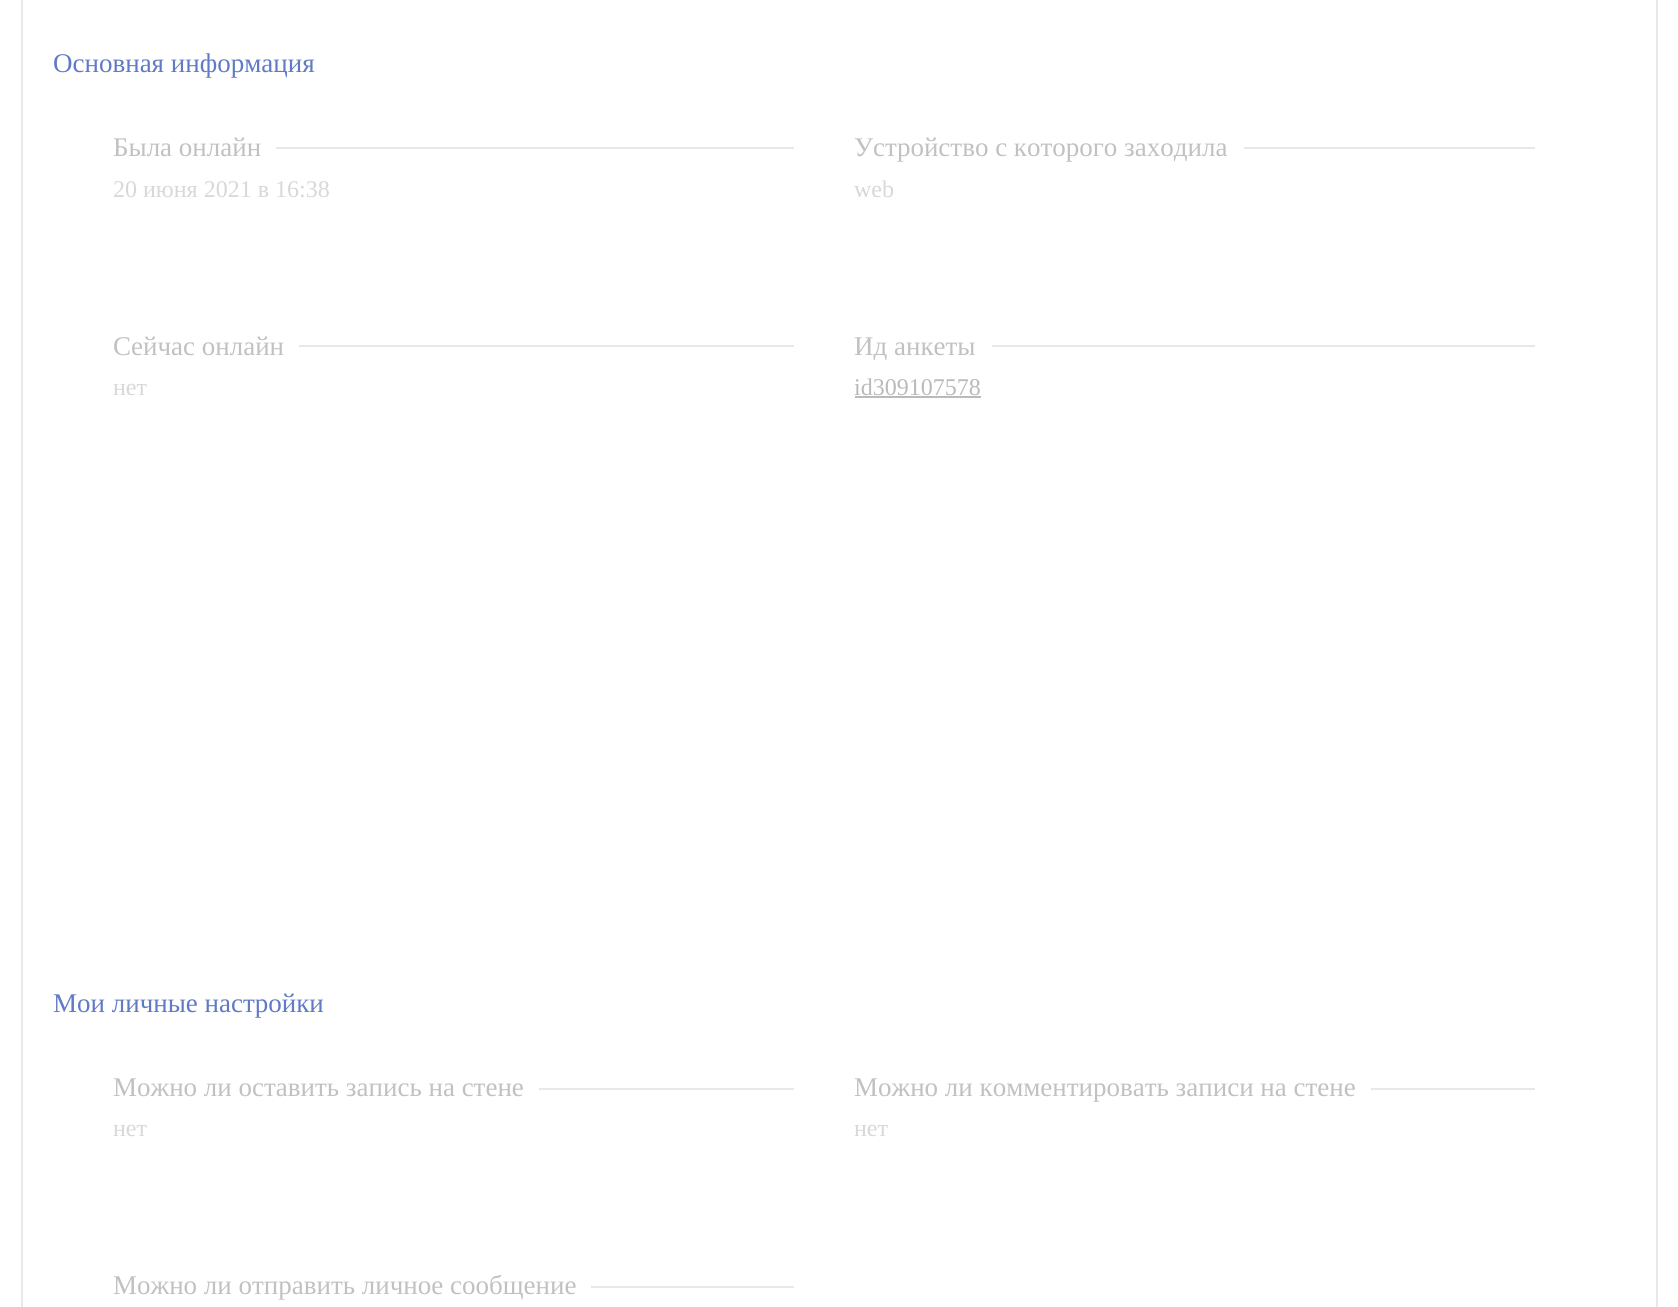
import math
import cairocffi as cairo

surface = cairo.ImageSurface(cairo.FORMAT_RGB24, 1678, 1307)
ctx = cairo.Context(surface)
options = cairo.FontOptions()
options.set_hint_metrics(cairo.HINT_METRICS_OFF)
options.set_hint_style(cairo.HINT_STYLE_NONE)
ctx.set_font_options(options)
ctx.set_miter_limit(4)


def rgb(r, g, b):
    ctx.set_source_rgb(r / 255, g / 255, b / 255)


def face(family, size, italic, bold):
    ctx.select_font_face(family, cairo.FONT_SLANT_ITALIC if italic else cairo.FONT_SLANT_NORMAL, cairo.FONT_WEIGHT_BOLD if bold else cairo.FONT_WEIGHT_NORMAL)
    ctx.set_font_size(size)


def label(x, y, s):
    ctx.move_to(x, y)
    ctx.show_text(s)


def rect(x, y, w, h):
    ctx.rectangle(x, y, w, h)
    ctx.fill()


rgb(255, 255, 255)
ctx.paint()
ctx.rectangle(22, -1, 1635, 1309)
rgb(233, 232, 230)
ctx.stroke()
face('Liberation Serif', 27, 0, 0)
rgb(96, 122, 197)
label(53, 72, 'Основная информация')
rgb(194, 193, 193)
label(113, 156, 'Была онлайн')
rgb(232, 232, 232)
rect(276, 147, 518, 2)
face('Liberation Serif', 24, 0, 0)
rgb(217, 216, 216)
label(113, 197, '20 июня 2021 в 16:38')
face('Liberation Serif', 27, 0, 0)
rgb(194, 193, 193)
label(854, 156, 'Устройство с которого заходила')
rgb(232, 232, 232)
rect(1244, 147, 291, 2)
face('Liberation Serif', 24, 0, 0)
rgb(217, 216, 216)
label(854, 197, 'web')
face('Liberation Serif', 27, 0, 0)
rgb(194, 193, 193)
label(113, 355, 'Сейчас онлайн')
rgb(232, 232, 232)
rect(299, 345, 495, 2)
face('Liberation Serif', 24, 0, 0)
rgb(217, 216, 216)
label(113, 395, 'нет')
face('Liberation Serif', 27, 0, 0)
rgb(194, 193, 193)
label(854, 355, 'Ид анкеты')
rgb(232, 232, 232)
rect(992, 345, 543, 2)
face('Liberation Serif', 24, 0, 0)
rgb(186, 186, 186)
label(854, 395, 'id309107578')
rect(855, 396, 126, 2)
face('Liberation Serif', 27, 0, 0)
rgb(96, 122, 197)
label(53, 1012, 'Мои личные настройки')
rgb(194, 193, 193)
label(113, 1096, 'Можно ли оставить запись на стене')
rgb(232, 232, 232)
rect(539, 1088, 255, 2)
face('Liberation Serif', 24, 0, 0)
rgb(217, 216, 216)
label(113, 1136, 'нет')
face('Liberation Serif', 27, 0, 0)
rgb(194, 193, 193)
label(854, 1096, 'Можно ли комментировать записи на стене')
rgb(232, 232, 232)
rect(1371, 1088, 164, 2)
face('Liberation Serif', 24, 0, 0)
rgb(217, 216, 216)
label(854, 1136, 'нет')
face('Liberation Serif', 27, 0, 0)
rgb(194, 193, 193)
label(113, 1294, 'Можно ли отправить личное сообщение')
rgb(232, 232, 232)
rect(591, 1286, 203, 2)
surface.write_to_png('render.png')
